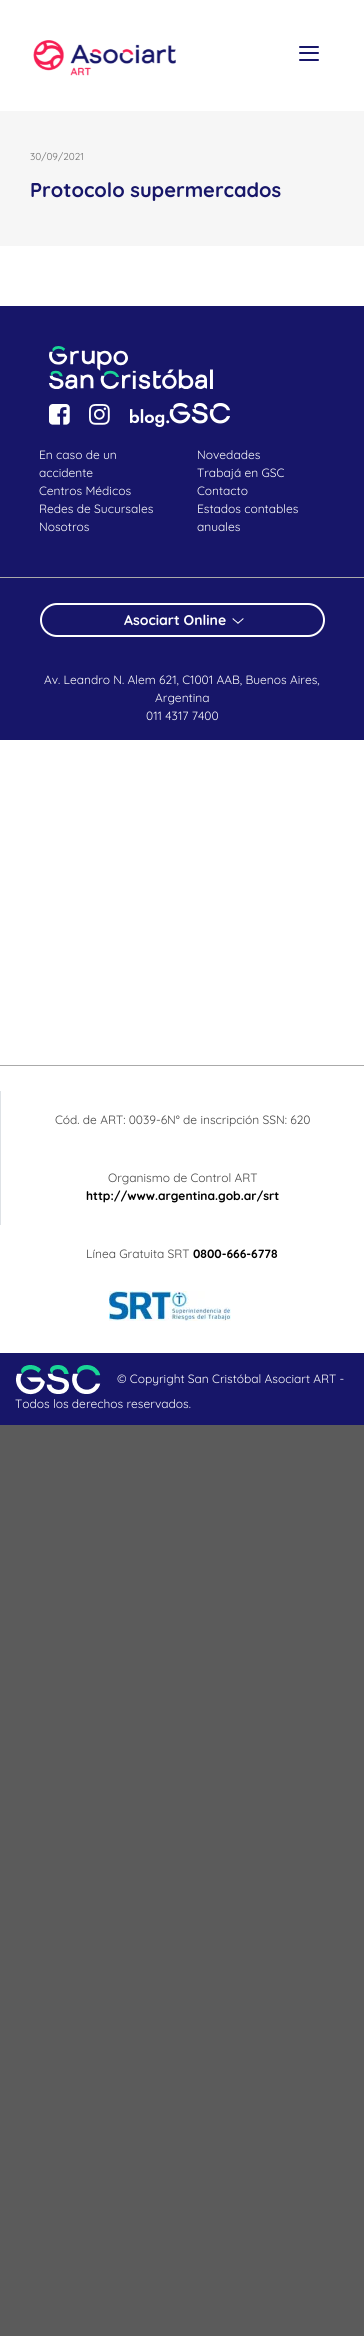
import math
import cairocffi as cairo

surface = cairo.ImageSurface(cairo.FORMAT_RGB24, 364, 2336)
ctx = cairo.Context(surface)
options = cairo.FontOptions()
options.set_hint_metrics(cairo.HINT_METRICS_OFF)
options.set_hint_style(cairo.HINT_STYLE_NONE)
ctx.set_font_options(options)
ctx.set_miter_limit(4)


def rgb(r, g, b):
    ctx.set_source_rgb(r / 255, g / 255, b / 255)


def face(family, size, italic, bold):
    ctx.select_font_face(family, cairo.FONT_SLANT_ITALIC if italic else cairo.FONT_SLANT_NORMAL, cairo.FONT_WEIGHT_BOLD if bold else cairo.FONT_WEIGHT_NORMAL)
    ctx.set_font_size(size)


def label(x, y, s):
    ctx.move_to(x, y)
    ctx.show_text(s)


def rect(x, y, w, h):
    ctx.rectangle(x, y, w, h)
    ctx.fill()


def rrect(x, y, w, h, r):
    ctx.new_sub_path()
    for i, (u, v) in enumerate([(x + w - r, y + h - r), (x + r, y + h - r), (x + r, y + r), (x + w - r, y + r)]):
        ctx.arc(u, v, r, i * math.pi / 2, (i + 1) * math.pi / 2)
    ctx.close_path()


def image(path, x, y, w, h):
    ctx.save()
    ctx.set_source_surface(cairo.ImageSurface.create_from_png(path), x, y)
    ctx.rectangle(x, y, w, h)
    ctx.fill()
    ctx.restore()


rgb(91, 91, 91)
ctx.paint()
rgb(255, 255, 255)
rect(0, 0, 364, 1353)
image('image0.png', 33, 40, 143, 36)
rgb(23, 22, 105)
rrect(299, 46, 20, 2, 1)
ctx.fill()
rrect(299, 52, 20, 2, 1)
ctx.fill()
rrect(299, 59, 20, 2, 1)
ctx.fill()
rgb(246, 246, 246)
rect(0, 111, 364, 135)
face('Quicksand Light', 10, 0, 0)
rgb(109, 109, 109)
label(30, 160, '30/09/2021')
face('Quicksand', 20, 0, 1)
rgb(23, 22, 105)
label(30, 197, 'Protocolo supermercados')
rect(0, 306, 364, 434)
image('image1.png', 49, 346, 164, 43)
image('image2.png', 49, 404, 21, 21)
image('image3.png', 89, 404, 21, 21)
image('image4.png', 130, 403, 100, 24)
face('Quicksand Light', 12, 0, 0)
rgb(255, 255, 255)
label(39, 459, 'En caso de un')
label(39, 477, 'accidente')
label(39, 495, 'Centros Médicos')
label(39, 513, 'Redes de Sucursales')
label(39, 531, 'Nosotros')
label(197, 459, 'Novedades')
label(197, 477, 'Trabajá en GSC')
label(197, 495, 'Contacto')
label(197, 513, 'Estados contables')
label(197, 531, 'anuales')
rgb(170, 170, 170)
rect(0, 577, 364, 1)
rrect(41, 604, 283, 32, 16)
rgb(255, 255, 255)
ctx.stroke()
face('Quicksand', 14, 0, 1)
label(124, 625, 'Asociart Online')
image('image5.png', 232, 618, 12, 6)
face('Quicksand Light', 12, 0, 0)
label(44, 684, 'Av. Leandro N. Alem 621, C1001 AAB, Buenos Aires,')
label(155, 702, 'Argentina')
label(146, 720, '011 4317 7400')
rgb(170, 170, 170)
rect(0, 1065, 364, 1)
rgb(222, 226, 230)
rect(0, 1091, 1, 134)
rgb(66, 66, 66)
label(55, 1124, 'Cód. de ART: 0039-6N° de inscripción SSN: 620')
label(108, 1182, 'Organismo de Control ART')
face('Quicksand', 12, 0, 1)
rgb(0, 0, 0)
label(86, 1200, 'http://www.argentina.gob.ar/srt')
face('Quicksand Light', 12, 0, 0)
rgb(66, 66, 66)
label(86, 1258, 'Línea Gratuita SRT')
face('Quicksand', 12, 0, 1)
rgb(0, 0, 0)
label(193, 1258, '0800-666-6778')
image('image6.png', 109, 1291, 122, 30)
rgb(23, 22, 105)
rect(0, 1353, 364, 72)
image('image7.png', 16, 1365, 85, 30)
face('Quicksand Light', 12, 0, 0)
rgb(255, 255, 255)
label(117, 1383, '© Copyright San Cristóbal Asociart ART -')
label(15, 1408, 'Todos los derechos reservados.')
surface.write_to_png('render.png')
